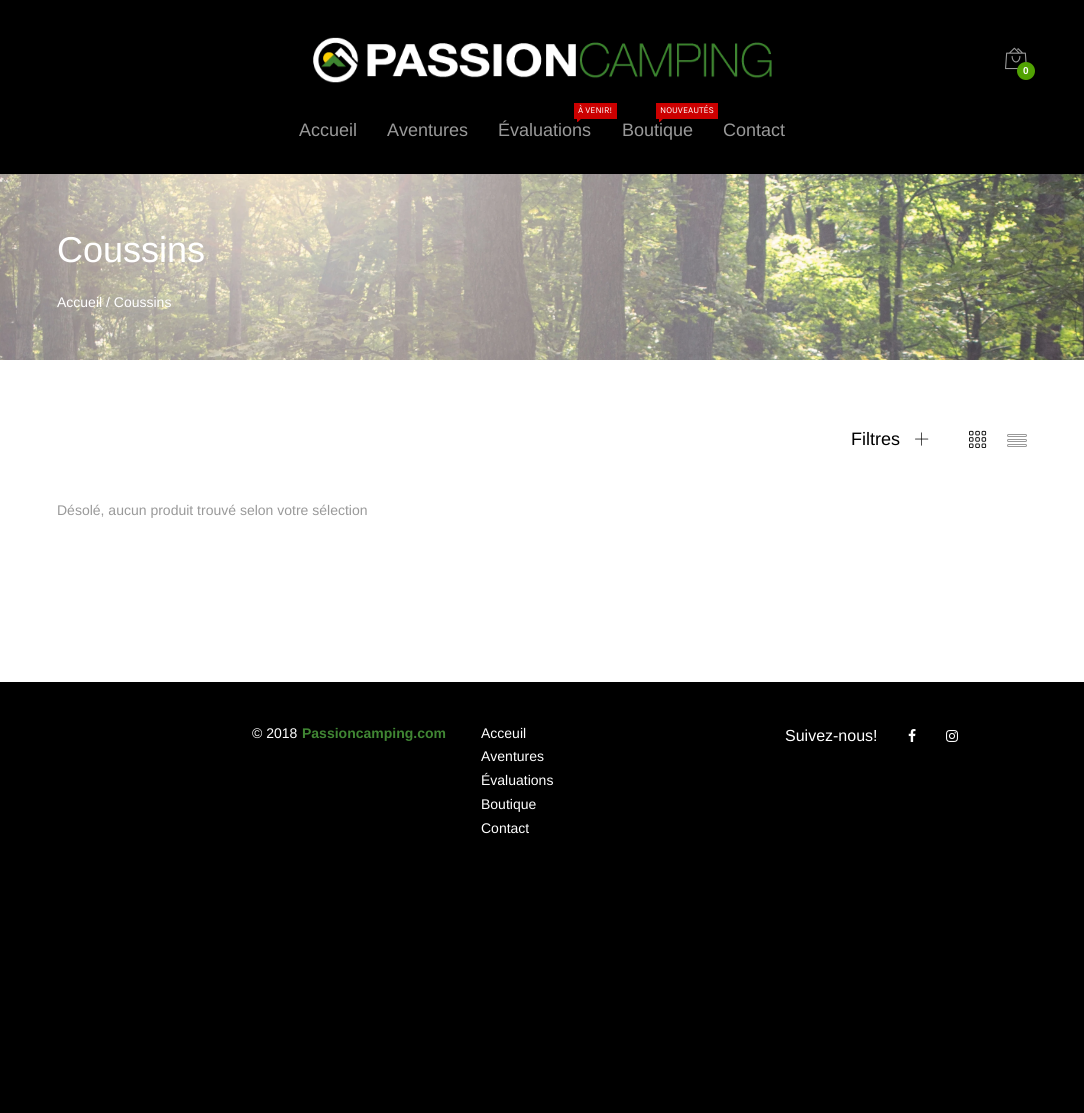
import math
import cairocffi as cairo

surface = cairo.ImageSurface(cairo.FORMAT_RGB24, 1084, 1113)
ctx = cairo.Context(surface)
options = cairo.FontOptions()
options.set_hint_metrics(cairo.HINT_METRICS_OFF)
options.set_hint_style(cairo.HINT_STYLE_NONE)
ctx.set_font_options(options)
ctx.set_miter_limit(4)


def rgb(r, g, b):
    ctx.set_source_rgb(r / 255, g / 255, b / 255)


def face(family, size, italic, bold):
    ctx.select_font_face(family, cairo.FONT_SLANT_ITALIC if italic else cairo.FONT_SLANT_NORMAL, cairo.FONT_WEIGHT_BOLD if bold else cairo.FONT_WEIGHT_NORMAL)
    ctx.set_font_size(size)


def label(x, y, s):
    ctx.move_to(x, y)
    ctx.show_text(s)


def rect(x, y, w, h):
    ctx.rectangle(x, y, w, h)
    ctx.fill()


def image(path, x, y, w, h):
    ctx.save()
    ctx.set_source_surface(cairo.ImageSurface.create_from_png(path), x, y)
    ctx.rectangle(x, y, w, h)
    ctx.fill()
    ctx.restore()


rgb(0, 0, 0)
ctx.paint()
image('image0.png', 313, 37, 459, 46)
image('image1.png', 1005, 47, 22, 23)
rgb(81, 162, 3)
ctx.arc(1026, 71, 9, 0, 2 * math.pi)
ctx.fill()
face('Liberation Sans', 10, 0, 1)
rgb(255, 255, 255)
label(1023, 74, '0')
face('Liberation Sans', 18, 0, 0)
rgb(153, 153, 153)
label(299, 136, 'Accueil')
label(387, 136, 'Aventures')
rgb(204, 0, 0)
rect(574, 103, 43, 16)
face('Karla', 9, 0, 0)
rgb(255, 255, 255)
label(578, 113, 'À VENIR!')
face('Liberation Sans', 18, 0, 0)
rgb(153, 153, 153)
label(498, 136, 'Évaluations')
image('image2.png', 577, 119, 4, 3)
rgb(204, 0, 0)
rect(656, 103, 62, 16)
face('Karla', 9, 0, 0)
rgb(255, 255, 255)
label(660, 113, 'NOUVEAUTÉS')
image('image2.png', 659, 119, 4, 3)
face('Liberation Sans', 18, 0, 0)
rgb(153, 153, 153)
label(622, 136, 'Boutique')
label(723, 136, 'Contact')
image('image3.png', 0, 174, 1084, 186)
face('Liberation Sans', 36, 0, 0)
rgb(255, 255, 255)
label(57, 262, 'Coussins')
face('Liberation Sans', 14, 0, 0)
label(57, 307, 'Accueil / Coussins')
rect(0, 360, 1084, 322)
face('Liberation Sans', 18, 0, 0)
rgb(0, 0, 0)
label(851, 445, 'Filtres')
image('image4.png', 915, 432, 14, 14)
image('image5.png', 969, 430, 18, 18)
image('image6.png', 1007, 434, 20, 13)
face('Liberation Sans', 14, 0, 0)
rgb(153, 153, 153)
label(57, 515, 'Désolé, aucun produit trouvé selon votre sélection')
rgb(255, 255, 255)
label(252, 738, '© 2018')
face('Liberation Sans', 14, 0, 1)
rgb(64, 134, 51)
label(302, 738, 'Passioncamping.com')
face('Liberation Sans', 14, 0, 0)
rgb(255, 255, 255)
label(481, 738, 'Acceuil')
label(481, 761, 'Aventures')
label(481, 785, 'Évaluations')
label(481, 809, 'Boutique')
label(481, 833, 'Contact')
face('Liberation Sans', 16, 0, 0)
label(785, 741, 'Suivez-nous!')
image('image7.png', 908, 729, 8, 13)
image('image8.png', 946, 730, 12, 12)
surface.write_to_png('render.png')
